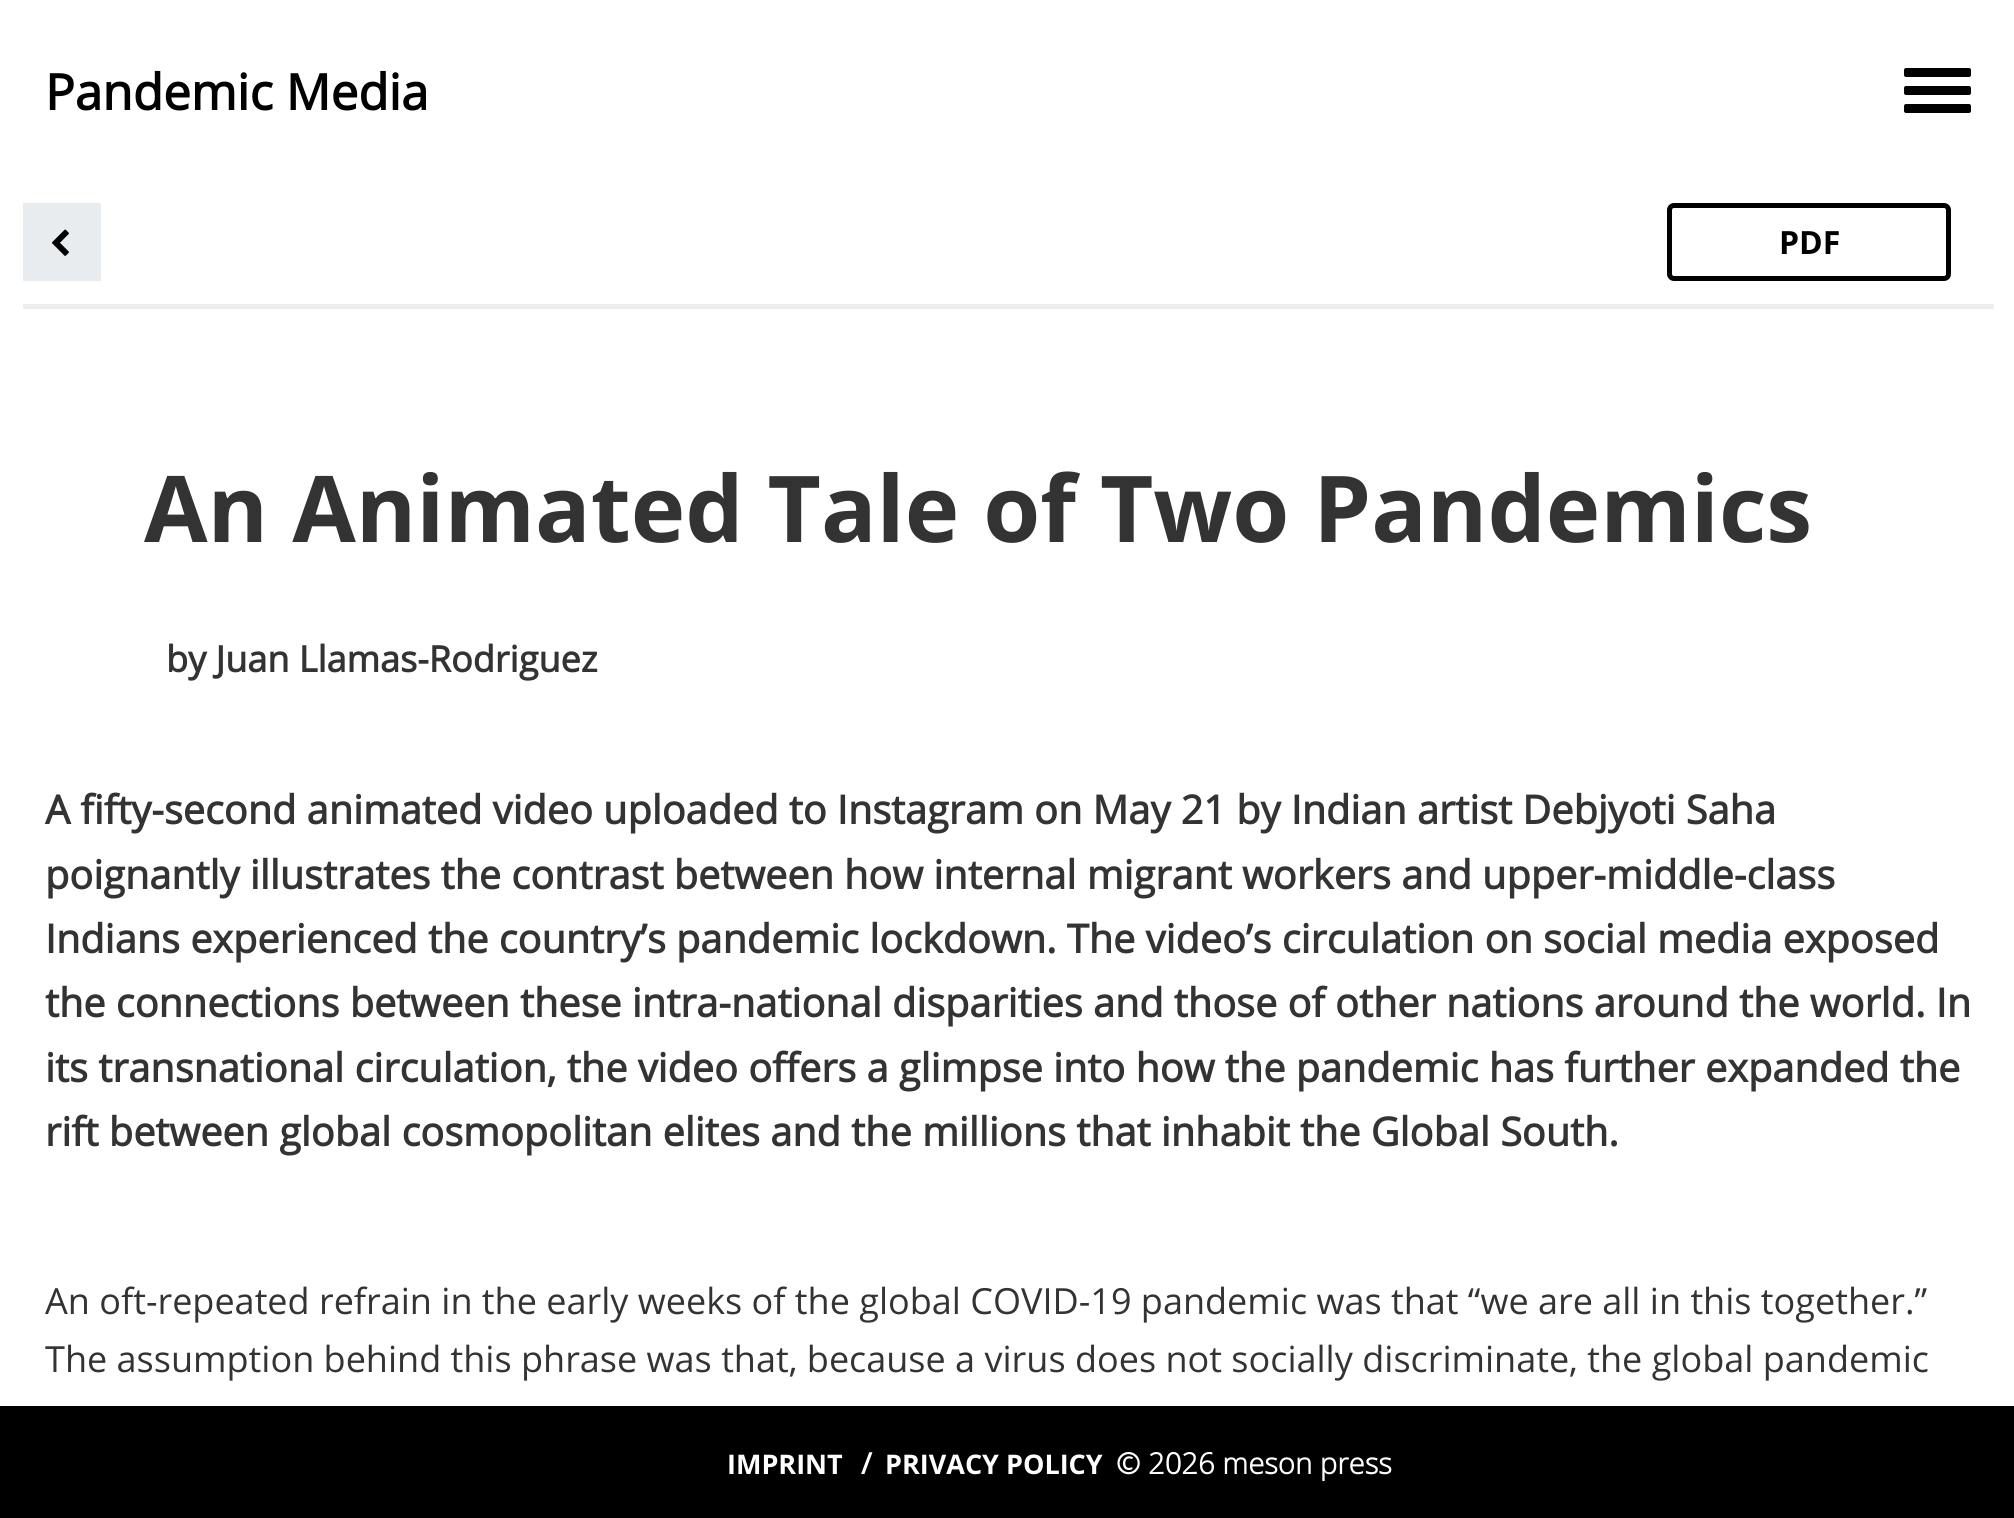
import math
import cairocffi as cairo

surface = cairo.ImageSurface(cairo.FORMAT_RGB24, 2014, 1518)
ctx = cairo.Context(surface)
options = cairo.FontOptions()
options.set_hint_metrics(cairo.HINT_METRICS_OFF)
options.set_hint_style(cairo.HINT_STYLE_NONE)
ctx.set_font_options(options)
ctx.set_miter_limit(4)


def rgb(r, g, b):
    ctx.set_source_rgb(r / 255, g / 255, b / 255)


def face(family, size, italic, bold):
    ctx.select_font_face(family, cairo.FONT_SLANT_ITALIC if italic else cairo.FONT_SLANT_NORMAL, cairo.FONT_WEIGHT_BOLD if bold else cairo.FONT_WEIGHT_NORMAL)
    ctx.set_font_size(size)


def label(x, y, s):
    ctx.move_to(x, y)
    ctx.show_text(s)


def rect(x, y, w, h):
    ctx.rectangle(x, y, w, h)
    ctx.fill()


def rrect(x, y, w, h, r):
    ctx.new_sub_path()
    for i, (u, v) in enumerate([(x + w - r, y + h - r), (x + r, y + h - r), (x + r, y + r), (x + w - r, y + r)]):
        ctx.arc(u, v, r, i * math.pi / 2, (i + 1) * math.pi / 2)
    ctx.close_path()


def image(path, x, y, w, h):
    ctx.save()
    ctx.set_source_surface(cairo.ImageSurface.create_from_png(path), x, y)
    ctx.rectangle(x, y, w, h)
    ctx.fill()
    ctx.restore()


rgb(255, 255, 255)
ctx.paint()
face('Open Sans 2', 49.5, 0, 1)
rgb(0, 0, 0)
label(45, 110, 'Pandemic Media')
rrect(1904, 68, 67, 9, 2)
ctx.fill()
rrect(1904, 86, 67, 9, 2)
ctx.fill()
rrect(1904, 104, 67, 9, 2)
ctx.fill()
rgb(238, 238, 238)
rect(23, 304, 1971, 5)
rgb(233, 236, 238)
rect(23, 203, 78, 78)
image('image0.png', 52, 229, 17, 27)
rrect(1669.5, 205.5, 279, 73, 4.5)
rgb(0, 0, 0)
ctx.set_line_width(5)
ctx.stroke()
face('Open Sans', 32, 0, 1)
label(1779, 254, 'PDF')
face('Open Sans', 92.2, 0, 1)
rgb(51, 51, 51)
label(144, 542, 'An Animated Tale of Two Pandemics')
face('Open Sans 2', 36, 0, 1)
label(166, 672, 'by Juan Llamas-Rodriguez')
face('Open Sans 2', 39.6, 0, 1)
label(45, 824, 'A fifty-second animated video uploaded to Instagram on May 21 by Indian artist Debjyoti Saha')
label(45, 889, 'poignantly illustrates the contrast between how internal migrant workers and upper-middle-class')
label(45, 953, 'Indians experienced the country’s pandemic lockdown. The video’s circulation on social media exposed')
label(45, 1017, 'the connections between these intra-national disparities and those of other nations around the world. In')
label(45, 1082, 'its transnational circulation, the video offers a glimpse into how the pandemic has further expanded the')
label(45, 1146, 'rift between global cosmopolitan elites and the millions that inhabit the Global South.')
face('Open Sans', 36, 0, 0)
label(45, 1314, 'An oft-repeated refrain in the early weeks of the global COVID-19 pandemic was that “we are all in this together.”')
label(45, 1372, 'The assumption behind this phrase was that, because a virus does not socially discriminate, the global pandemic')
rgb(0, 0, 0)
rect(0, 1406, 2014, 112)
face('Open Sans', 27, 0, 1)
rgb(255, 255, 255)
label(727, 1474, 'IMPRINT')
face('Open Sans 2', 29.25, 0, 1)
label(861, 1474, '/')
face('Open Sans', 27, 0, 1)
label(885, 1474, 'PRIVACY POLICY')
face('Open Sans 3', 29.25, 0, 1)
label(1116, 1474, '© 2026 meson press')
surface.write_to_png('render.png')
